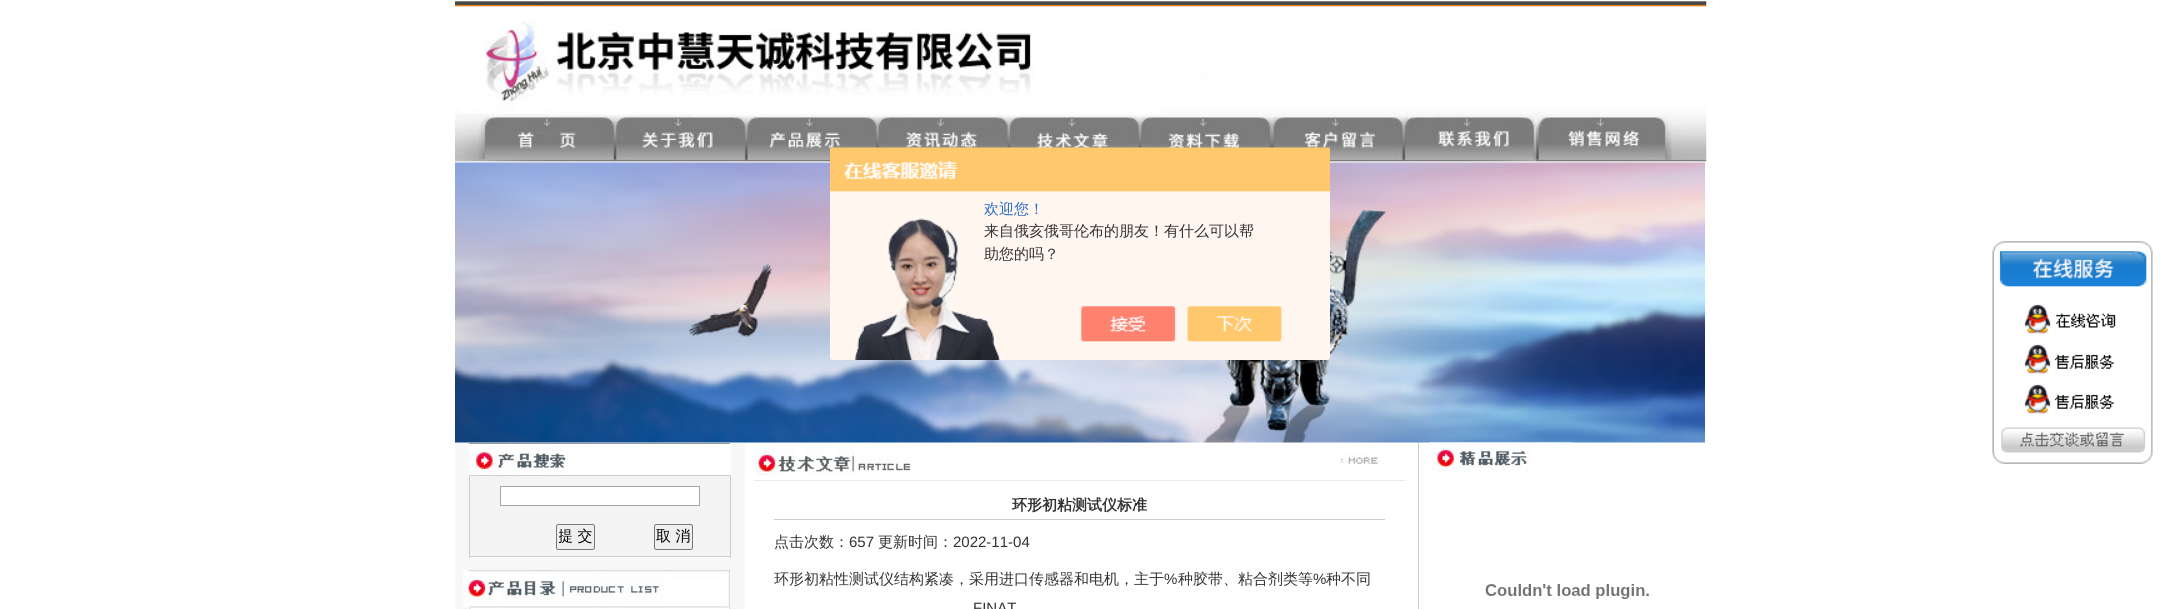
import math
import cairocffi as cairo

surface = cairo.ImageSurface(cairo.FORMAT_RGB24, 2160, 609)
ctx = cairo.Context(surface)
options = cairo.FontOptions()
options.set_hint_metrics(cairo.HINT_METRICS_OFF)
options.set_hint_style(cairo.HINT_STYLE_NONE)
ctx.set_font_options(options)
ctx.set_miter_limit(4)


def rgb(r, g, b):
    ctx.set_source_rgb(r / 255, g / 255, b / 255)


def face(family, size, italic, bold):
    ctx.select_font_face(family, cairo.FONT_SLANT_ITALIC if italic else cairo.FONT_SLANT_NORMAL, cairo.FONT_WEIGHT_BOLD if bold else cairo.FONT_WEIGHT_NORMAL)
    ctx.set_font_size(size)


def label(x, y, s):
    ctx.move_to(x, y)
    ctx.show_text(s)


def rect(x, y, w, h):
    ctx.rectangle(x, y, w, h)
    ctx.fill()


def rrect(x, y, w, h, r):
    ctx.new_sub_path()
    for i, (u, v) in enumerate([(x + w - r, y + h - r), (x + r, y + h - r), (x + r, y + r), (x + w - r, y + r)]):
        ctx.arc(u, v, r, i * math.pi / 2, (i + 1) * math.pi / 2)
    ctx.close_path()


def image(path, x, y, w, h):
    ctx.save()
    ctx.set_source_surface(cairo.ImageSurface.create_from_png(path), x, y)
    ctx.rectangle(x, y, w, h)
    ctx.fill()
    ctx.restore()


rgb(255, 255, 255)
ctx.paint()
image('image0.png', 455, 0, 1252, 162)
image('image1.png', 455, 162, 1250, 281)
image('image2.png', 830, 147, 500, 213)
face('WenQuanYi Zen Hei Medium', 15, 0, 0)
rgb(46, 110, 198)
label(984, 214, '欢迎您！')
rgb(51, 51, 51)
label(984, 236, '来自俄亥俄哥伦布的朋友！有什么可以帮')
label(984, 259, '助您的吗？')
image('image3.png', 1992, 241, 161, 223)
rgb(247, 247, 247)
rect(455, 443, 290, 166)
rgb(255, 255, 255)
rect(469, 443, 262, 115)
rgb(153, 153, 153)
rect(469, 443, 261, 1)
image('image4.png', 469, 445, 99, 29)
rgb(244, 244, 244)
rect(470, 476, 260, 80)
rgb(204, 204, 204)
rect(469, 475, 262, 1)
rect(730, 475, 1, 83)
rect(469, 556, 262, 1)
rect(469, 475, 1, 83)
rgb(255, 255, 255)
ctx.rectangle(500.5, 486.5, 199, 19)
ctx.fill_preserve()
rgb(166, 166, 166)
ctx.set_line_width(1)
ctx.stroke()
rgb(239, 239, 239)
rrect(556.5, 524.5, 38, 25, 2)
ctx.fill_preserve()
rgb(118, 118, 118)
ctx.stroke()
ctx.save()
ctx.rectangle(559, 526, 34, 22)
ctx.clip()
rgb(0, 0, 0)
label(558, 541, '提 交')
ctx.restore()
rgb(239, 239, 239)
rrect(654.5, 524.5, 38, 25, 2)
ctx.fill_preserve()
rgb(118, 118, 118)
ctx.stroke()
rgb(0, 0, 0)
label(656, 541, '取 消')
image('image5.png', 462, 570, 268, 38)
rgb(244, 242, 243)
rect(463, 608, 275, 1)
rgb(221, 221, 221)
rect(729, 608, 1, 1)
rgb(255, 255, 255)
rect(470, 608, 259, 1)
rgb(221, 221, 221)
rect(470, 608, 1, 1)
rgb(204, 204, 204)
rect(1418, 443, 1, 166)
image('image6.png', 755, 447, 156, 28)
rgb(234, 234, 234)
rect(754, 480, 651, 1)
image('image7.png', 1339, 454, 41, 11)
face('WenQuanYi Zen Hei', 15, 0, 1)
rgb(51, 51, 51)
label(1012, 510, '环形初粘测试仪标准')
rgb(204, 204, 204)
rect(774, 519, 611, 1)
face('WenQuanYi Zen Hei Medium', 15, 0, 0)
rgb(51, 51, 51)
label(774, 547, '点击次数：')
face('Liberation Sans', 15, 0, 0)
label(849, 547, '657')
face('WenQuanYi Zen Hei Medium', 15, 0, 0)
label(878, 547, '更新时间：')
face('Liberation Sans', 15, 0, 0)
label(953, 547, '2022-11-04')
face('WenQuanYi Zen Hei Medium', 15, 0, 0)
label(774, 584, '环形初粘性测试仪结构紧凑，采用进口传感器和电机，主于')
face('Liberation Sans', 15, 0, 0)
label(1164, 584, '%')
face('WenQuanYi Zen Hei Medium', 15, 0, 0)
label(1178, 584, '种胶带、粘合剂类等')
face('Liberation Sans', 15, 0, 0)
label(1313, 584, '%')
face('WenQuanYi Zen Hei Medium', 15, 0, 0)
label(1326, 584, '种不同')
face('Liberation Sans', 15, 0, 0)
label(973, 613, 'FINAT')
image('image8.png', 1430, 442, 143, 30)
image('image9.png', 1485, 584, 164, 15)
surface.write_to_png('render.png')
